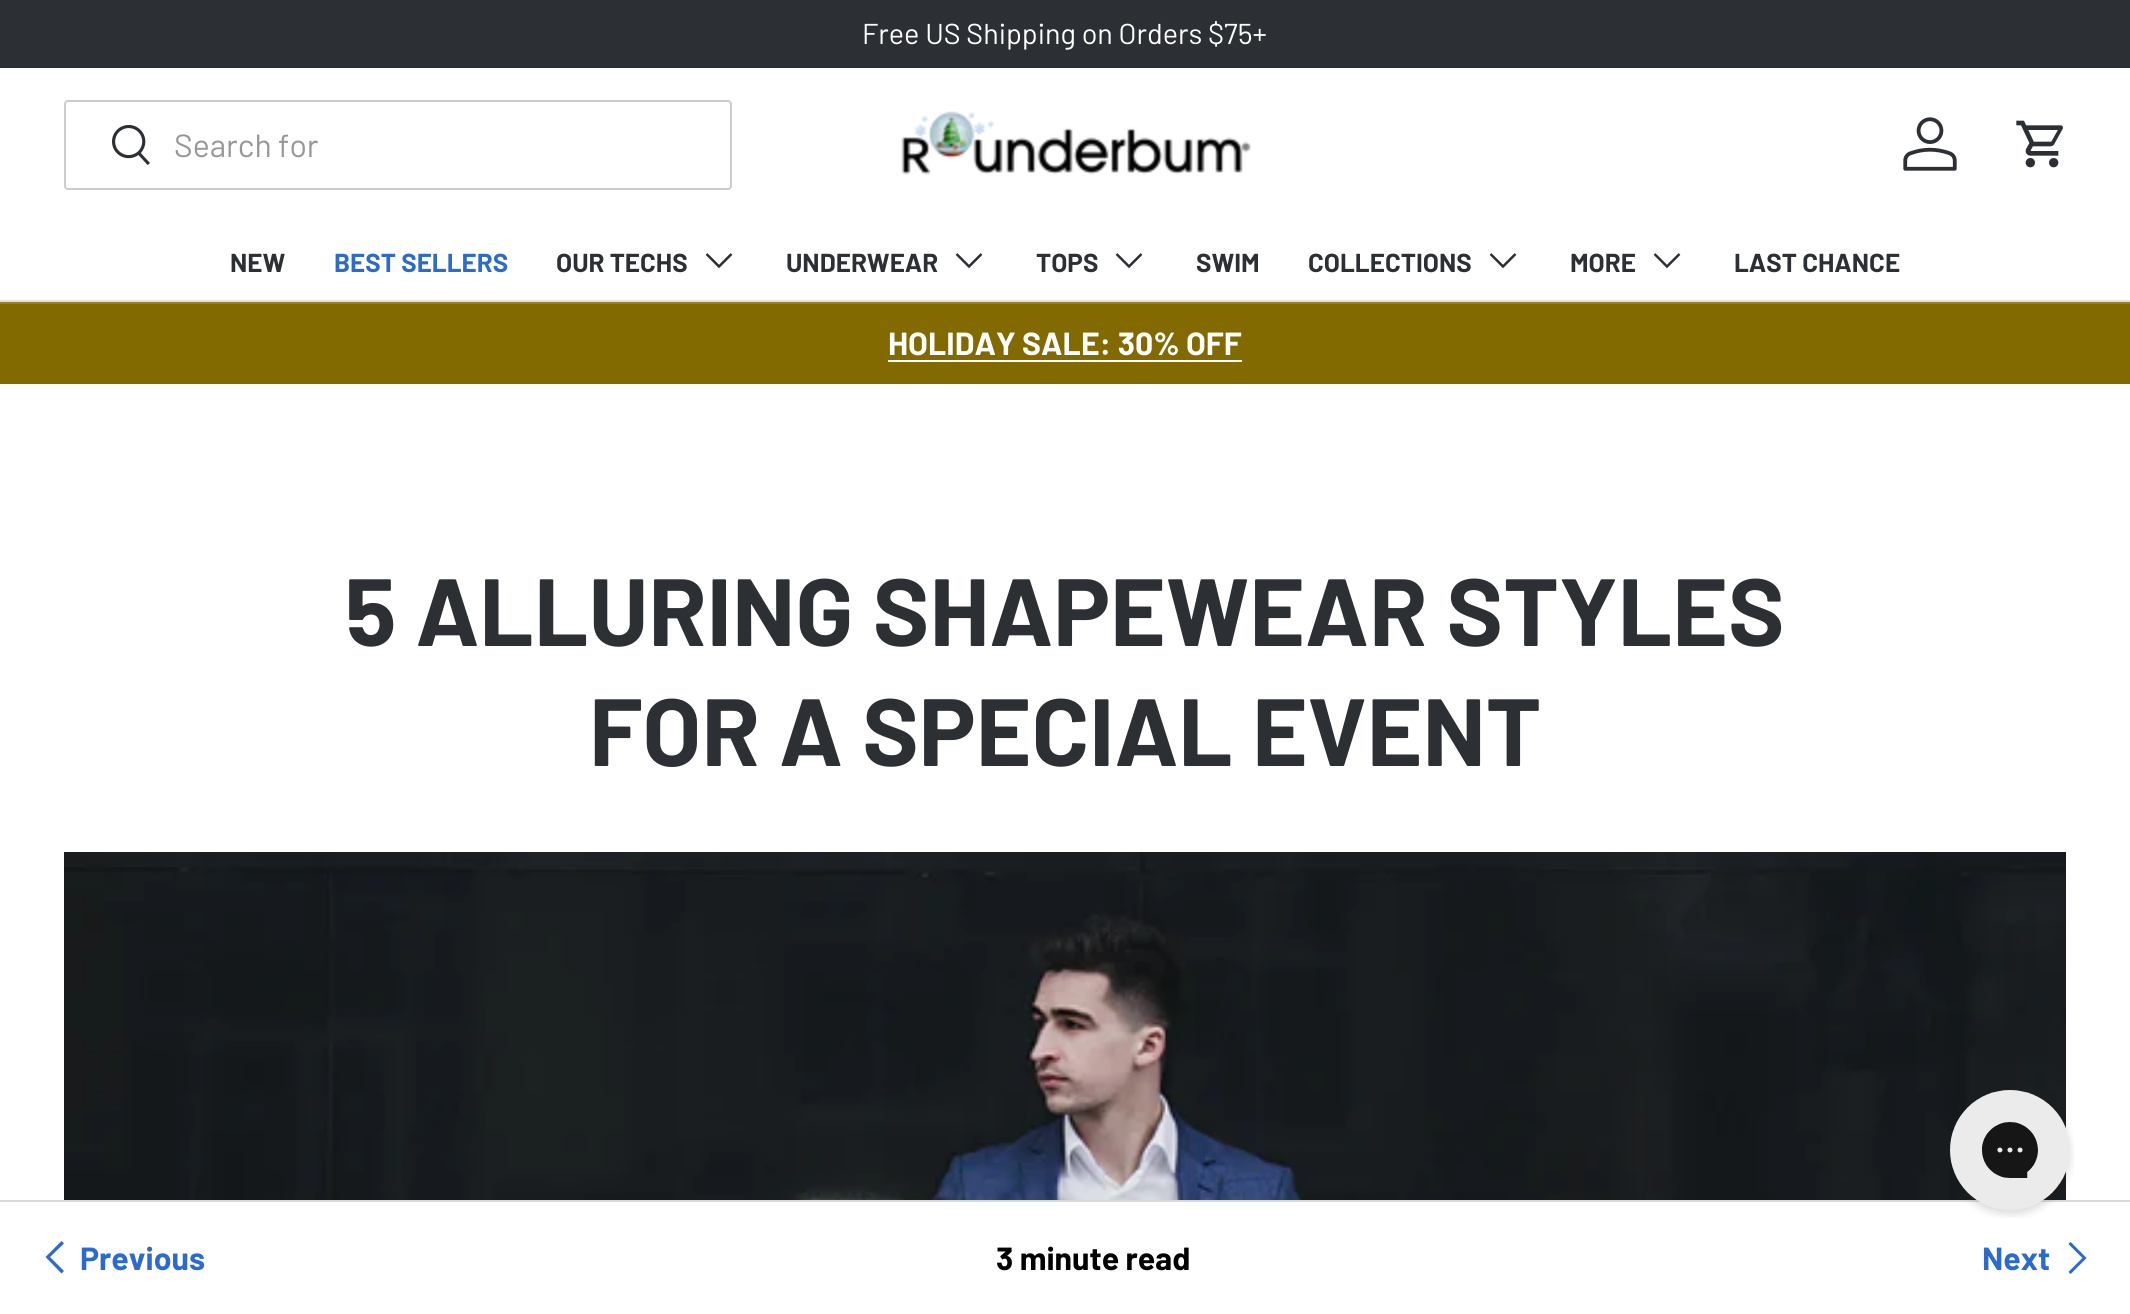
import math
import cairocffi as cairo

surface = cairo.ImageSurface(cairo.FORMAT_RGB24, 2130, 1314)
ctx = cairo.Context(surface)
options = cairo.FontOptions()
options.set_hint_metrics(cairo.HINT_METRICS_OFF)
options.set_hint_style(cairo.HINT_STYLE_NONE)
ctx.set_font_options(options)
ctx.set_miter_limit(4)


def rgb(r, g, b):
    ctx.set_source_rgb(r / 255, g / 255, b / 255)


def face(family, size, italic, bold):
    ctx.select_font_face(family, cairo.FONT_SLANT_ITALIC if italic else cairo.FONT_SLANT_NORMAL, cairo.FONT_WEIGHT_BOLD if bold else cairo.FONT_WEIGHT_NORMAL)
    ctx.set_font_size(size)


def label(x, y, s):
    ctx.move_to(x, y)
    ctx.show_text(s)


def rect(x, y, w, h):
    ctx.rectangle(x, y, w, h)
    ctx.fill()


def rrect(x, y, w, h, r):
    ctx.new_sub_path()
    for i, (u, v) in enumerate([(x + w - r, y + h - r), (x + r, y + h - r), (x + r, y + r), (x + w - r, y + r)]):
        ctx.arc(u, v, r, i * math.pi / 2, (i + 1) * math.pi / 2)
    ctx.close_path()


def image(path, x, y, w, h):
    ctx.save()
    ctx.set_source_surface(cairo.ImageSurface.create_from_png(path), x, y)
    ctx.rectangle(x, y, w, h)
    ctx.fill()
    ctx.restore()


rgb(255, 255, 255)
ctx.paint()
rgb(44, 47, 51)
rect(0, 0, 2130, 68)
face('Barlow', 28.75, 0, 0)
rgb(255, 255, 255)
label(862, 44, 'Free US Shipping on Orders $75+')
rgb(223, 224, 224)
rect(0, 300, 2130, 2)
rrect(65, 101, 666, 88, 3)
rgb(204, 204, 204)
ctx.stroke()
image('image0.png', 112, 124, 38, 41)
face('Barlow', 32, 0, 0)
rgb(150, 151, 153)
label(174, 157, 'Search for')
image('image1.png', 901, 111, 350, 64)
image('image2.png', 1903, 117, 54, 54)
image('image3.png', 2016, 120, 47, 48)
face('Barlow', 26, 0, 1)
rgb(44, 47, 51)
label(230, 272, 'NEW')
rgb(44, 107, 204)
label(334, 272, 'BEST SELLERS')
rgb(44, 47, 51)
label(556, 272, 'OUR TECHS')
ctx.new_path()
ctx.move_to(731.5, 254)
ctx.line_to(719, 266.5)
ctx.line_to(706.5, 254)
ctx.set_line_width(2.5)
ctx.stroke()
label(786, 272, 'UNDERWEAR')
ctx.new_path()
ctx.move_to(981.5, 254)
ctx.line_to(969, 266.5)
ctx.line_to(956.5, 254)
ctx.stroke()
label(1036, 272, 'TOPS')
ctx.new_path()
ctx.move_to(1141.5, 254)
ctx.line_to(1129, 266.5)
ctx.line_to(1116.5, 254)
ctx.stroke()
label(1196, 272, 'SWIM')
label(1308, 272, 'COLLECTIONS')
ctx.new_path()
ctx.move_to(1515.5, 254)
ctx.line_to(1503, 266.5)
ctx.line_to(1490.5, 254)
ctx.stroke()
label(1570, 272, 'MORE')
ctx.new_path()
ctx.move_to(1679.5, 254)
ctx.line_to(1667, 266.5)
ctx.line_to(1654.5, 254)
ctx.stroke()
label(1734, 272, 'LAST CHANCE')
rgb(130, 106, 0)
rect(0, 304, 2130, 80)
rgb(149, 128, 38)
rect(0, 302, 2130, 2)
face('Barlow', 32, 0, 1)
rgb(255, 255, 255)
label(888, 355, 'HOLIDAY SALE: 30% OFF')
rect(888, 360, 354, 2)
face('Barlow', 95.3, 0, 1)
rgb(44, 47, 51)
label(345, 646, '5 ALLURING SHAPEWEAR STYLES')
label(589, 766, 'FOR A SPECIAL EVENT')
image('image4.png', 64, 852, 2002, 348)
rgb(217, 217, 217)
rect(0, 1200, 2130, 2)
rgb(44, 107, 204)
ctx.new_path()
ctx.move_to(45.5, 1257)
ctx.line_to(61.5, 1241)
ctx.line_to(64, 1243.5)
ctx.line_to(50, 1257)
ctx.line_to(64, 1271)
ctx.line_to(61.5, 1273.5)
ctx.close_path()
ctx.fill()
face('Barlow', 32, 0, 1)
label(80, 1270, 'Previous')
rgb(0, 0, 0)
label(996, 1270, '3 minute read')
rgb(44, 107, 204)
label(1982, 1270, 'Next')
ctx.new_path()
ctx.move_to(2069.5, 1243)
ctx.line_to(2084.5, 1258)
ctx.line_to(2069.5, 1273)
ctx.set_line_width(3)
ctx.stroke()
image('image5.png', 1950, 1090, 124, 128)
surface.write_to_png('render.png')
